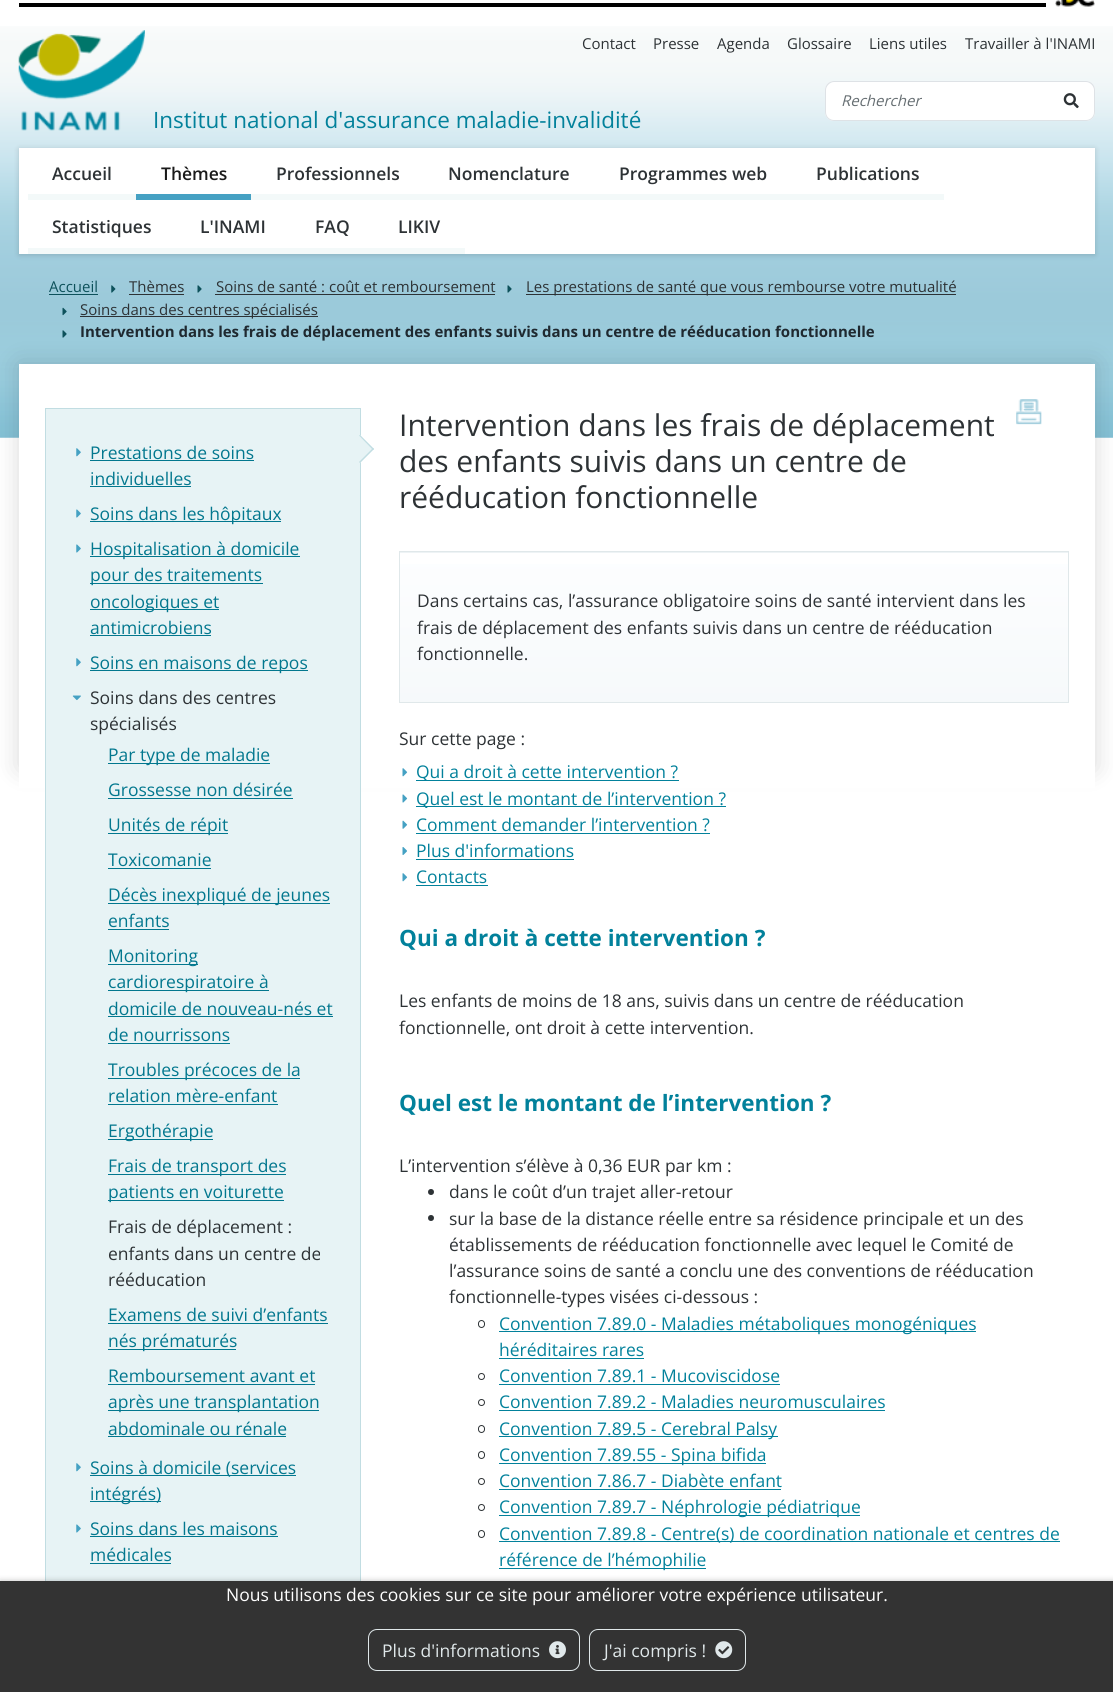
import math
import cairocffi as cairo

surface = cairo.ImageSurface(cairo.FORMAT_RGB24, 1113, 1692)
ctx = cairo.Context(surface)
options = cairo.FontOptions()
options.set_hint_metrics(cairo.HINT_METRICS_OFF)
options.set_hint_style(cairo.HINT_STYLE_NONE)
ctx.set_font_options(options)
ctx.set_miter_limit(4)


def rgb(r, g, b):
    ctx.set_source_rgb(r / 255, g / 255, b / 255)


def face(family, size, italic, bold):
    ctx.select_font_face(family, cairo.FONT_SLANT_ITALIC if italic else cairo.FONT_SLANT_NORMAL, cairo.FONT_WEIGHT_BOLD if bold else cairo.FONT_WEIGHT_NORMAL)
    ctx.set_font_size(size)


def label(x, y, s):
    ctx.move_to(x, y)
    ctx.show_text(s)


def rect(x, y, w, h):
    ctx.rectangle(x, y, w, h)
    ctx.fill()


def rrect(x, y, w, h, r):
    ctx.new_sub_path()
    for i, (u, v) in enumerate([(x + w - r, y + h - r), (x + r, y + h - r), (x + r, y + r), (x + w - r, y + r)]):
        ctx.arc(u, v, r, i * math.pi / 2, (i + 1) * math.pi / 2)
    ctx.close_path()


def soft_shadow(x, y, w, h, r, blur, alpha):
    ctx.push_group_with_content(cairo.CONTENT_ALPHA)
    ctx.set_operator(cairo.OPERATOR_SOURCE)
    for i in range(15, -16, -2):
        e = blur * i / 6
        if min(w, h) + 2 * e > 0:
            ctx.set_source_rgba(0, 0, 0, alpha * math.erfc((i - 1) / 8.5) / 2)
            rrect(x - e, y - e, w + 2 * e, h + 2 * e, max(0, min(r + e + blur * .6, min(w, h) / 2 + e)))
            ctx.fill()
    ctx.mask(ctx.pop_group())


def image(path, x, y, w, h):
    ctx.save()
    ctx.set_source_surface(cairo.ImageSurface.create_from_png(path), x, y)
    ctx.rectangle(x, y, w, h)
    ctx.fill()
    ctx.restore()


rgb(255, 255, 255)
ctx.paint()
image('image0.png', 0, 26, 1113, 412)
rgb(0, 0, 0)
rect(19, 3, 1027, 4)
image('image1.png', 1055, 0, 40, 7)
face('Open Sans', 15, 0, 0)
rgb(45, 50, 53)
label(582, 49, 'Contact')
label(653, 49, 'Presse')
label(717, 49, 'Agenda')
label(787, 49, 'Glossaire')
label(869, 49, 'Liens utiles')
label(965, 49, 'Travailler à l\'INAMI')
rgb(255, 255, 255)
rrect(825, 81, 270, 40, 9)
ctx.fill()
rgb(222, 226, 230)
ctx.set_fill_rule(cairo.FILL_RULE_EVEN_ODD)
ctx.new_path()
ctx.move_to(834, 81)
ctx.line_to(1050, 81)
ctx.line_to(1050, 121)
ctx.line_to(834, 121)
ctx.curve_to(829, 121, 825, 117, 825, 112)
ctx.line_to(825, 90)
ctx.curve_to(825, 85, 829, 81, 834, 81)
ctx.close_path()
ctx.move_to(834, 82)
ctx.line_to(1050, 82)
ctx.line_to(1050, 120)
ctx.line_to(834, 120)
ctx.curve_to(830, 120, 826, 117, 826, 112)
ctx.line_to(826, 90)
ctx.curve_to(826, 86, 830, 82, 834, 82)
ctx.close_path()
ctx.fill()
face('Open Sans', 15, 1, 0)
rgb(102, 110, 114)
label(841, 106, 'Rechercher')
rgb(222, 226, 230)
ctx.new_path()
ctx.move_to(1049, 81)
ctx.line_to(1086, 81)
ctx.curve_to(1091, 81, 1095, 85, 1095, 90)
ctx.line_to(1095, 112)
ctx.curve_to(1095, 117, 1091, 121, 1086, 121)
ctx.line_to(1049, 121)
ctx.close_path()
ctx.move_to(1049, 82)
ctx.line_to(1086, 82)
ctx.curve_to(1090, 82, 1094, 86, 1094, 90)
ctx.line_to(1094, 112)
ctx.curve_to(1094, 117, 1090, 120, 1086, 120)
ctx.line_to(1049, 120)
ctx.close_path()
ctx.fill()
image('image2.png', 1063, 93, 16, 16)
image('image3.png', 18, 30, 127, 101)
face('Open Sans', 22.5, 0, 0)
rgb(2, 129, 155)
label(153, 128, 'Institut national d\'assurance maladie-invalidité')
rgb(0, 0, 0)
soft_shadow(19, 149, 1076, 106, 0, 3, 0.15)
rgb(255, 255, 255)
rect(19, 148, 1076, 106)
rgb(243, 249, 249)
rect(28, 194, 108, 6)
face('Open Sans SemiBold', 17.5, 0, 0)
rgb(45, 50, 53)
label(52, 180, 'Accueil')
rgb(69, 161, 195)
rect(136, 194, 115, 6)
rgb(26, 26, 26)
label(161, 180, 'Thèmes')
rgb(243, 249, 249)
rect(251, 194, 693, 6)
rgb(45, 50, 53)
label(276, 180, 'Professionnels')
label(448, 180, 'Nomenclature')
label(619, 180, 'Programmes web')
label(816, 180, 'Publications')
rgb(243, 249, 249)
rect(28, 248, 437, 6)
rgb(45, 50, 53)
label(52, 233, 'Statistiques')
label(200, 233, 'L\'INAMI')
label(315, 233, 'FAQ')
label(398, 233, 'LIKIV')
face('Open Sans', 15, 0, 0)
rgb(13, 81, 91)
label(49, 292, 'Accueil')
rect(49, 294, 49, 1)
image('image4.png', 111, 285, 5, 8)
rgb(45, 50, 53)
label(129, 292, 'Thèmes')
rect(129, 294, 55, 1)
image('image5.png', 197, 285, 5, 8)
label(216, 292, 'Soins de santé : coût et remboursement')
rect(215, 294, 280, 1)
image('image5.png', 507, 285, 5, 8)
rect(526, 294, 430, 1)
label(526, 292, 'Les prestations de santé que vous rembourse votre mutualité')
image('image6.png', 62, 307, 5, 9)
rect(80, 316, 238, 1)
label(80, 315, 'Soins dans des centres spécialisés')
rgb(0, 0, 0)
soft_shadow(19, 364, 1076, 405, 0, 12.5, 0.15)
image('image7.png', 62, 330, 5, 8)
face('Open Sans', 15, 0, 1)
rgb(31, 41, 48)
label(80, 337, 'Intervention dans les frais de déplacement des enfants suivis dans un centre de rééducation fonctionnelle')
rgb(255, 255, 255)
rect(19, 364, 1076, 424)
image('image8.png', 1016, 399, 26, 26)
rgb(231, 243, 245)
rect(46, 409, 314, 1172)
ctx.rectangle(45.5, 408.5, 315, 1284)
rgb(193, 221, 226)
ctx.set_line_width(1)
ctx.stroke()
image('image9.png', 76, 448, 5, 9)
face('Open Sans', 17.5, 0, 0)
rgb(2, 119, 142)
label(90, 459, 'Prestations de soins')
rect(90, 460, 164, 1)
label(90, 485, 'individuelles')
rect(90, 486, 101, 1)
image('image10.png', 76, 509, 5, 9)
rect(90, 521, 191, 1)
label(90, 520, 'Soins dans les hôpitaux')
image('image10.png', 76, 544, 5, 9)
rect(90, 556, 210, 1)
label(90, 555, 'Hospitalisation à domicile')
rect(90, 583, 173, 1)
label(90, 581, 'pour des traitements')
rect(90, 609, 129, 1)
label(90, 608, 'oncologiques et')
label(90, 634, 'antimicrobiens')
rect(90, 635, 121, 1)
image('image9.png', 76, 658, 5, 9)
rect(90, 670, 218, 1)
label(90, 669, 'Soins en maisons de repos')
image('image11.png', 72, 695, 9, 6)
rgb(45, 50, 53)
label(90, 704, 'Soins dans des centres')
label(90, 730, 'spécialisés')
rgb(2, 119, 142)
rect(108, 763, 162, 1)
label(108, 761, 'Par type de maladie')
label(108, 796, 'Grossesse non désirée')
rect(108, 798, 185, 1)
rect(108, 833, 120, 1)
label(108, 831, 'Unités de répit')
label(108, 866, 'Toxicomanie')
rect(108, 868, 103, 1)
rect(108, 903, 222, 1)
label(108, 901, 'Décès inexpliqué de jeunes')
label(108, 927, 'enfants')
rect(108, 929, 61, 1)
rect(108, 964, 90, 1)
label(108, 962, 'Monitoring')
rect(108, 990, 161, 1)
label(108, 988, 'cardiorespiratoire à')
label(108, 1015, 'domicile de nouveau-nés et')
rect(108, 1016, 225, 1)
label(108, 1041, 'de nourrissons')
rect(108, 1043, 122, 1)
rect(108, 1078, 192, 1)
label(108, 1076, 'Troubles précoces de la')
label(108, 1102, 'relation mère-enfant')
rect(108, 1104, 170, 1)
rect(108, 1139, 105, 1)
label(108, 1137, 'Ergothérapie')
rect(108, 1174, 178, 1)
label(108, 1172, 'Frais de transport des')
rect(108, 1200, 176, 1)
label(108, 1198, 'patients en voiturette')
rgb(45, 50, 53)
label(108, 1233, 'Frais de déplacement :')
label(108, 1260, 'enfants dans un centre de')
label(108, 1286, 'rééducation')
rgb(2, 119, 142)
label(108, 1321, 'Examens de suivi d’enfants')
rect(108, 1323, 220, 1)
rect(108, 1349, 128, 1)
label(108, 1347, 'nés prématurés')
label(108, 1382, 'Remboursement avant et')
rect(108, 1384, 207, 1)
rect(108, 1410, 211, 1)
label(108, 1408, 'après une transplantation')
label(108, 1435, 'abdominale ou rénale')
rect(108, 1436, 178, 1)
image('image9.png', 76, 1463, 5, 9)
rect(90, 1475, 206, 1)
label(90, 1474, 'Soins à domicile (services')
rect(90, 1501, 71, 1)
label(90, 1500, 'intégrés)')
image('image10.png', 76, 1524, 5, 9)
label(90, 1535, 'Soins dans les maisons')
rect(90, 1536, 188, 1)
label(90, 1561, 'médicales')
rect(90, 1563, 81, 1)
rgb(231, 243, 245)
ctx.set_fill_rule(cairo.FILL_RULE_WINDING)
ctx.new_path()
ctx.move_to(360, 435)
ctx.line_to(374, 449)
ctx.line_to(360, 463)
ctx.line_to(346, 449)
ctx.close_path()
ctx.fill()
rgb(193, 221, 226)
ctx.new_path()
ctx.move_to(360, 435)
ctx.line_to(374, 449)
ctx.line_to(373, 450)
ctx.line_to(359, 435.5)
ctx.close_path()
ctx.fill()
ctx.new_path()
ctx.move_to(373, 448)
ctx.line_to(374, 449)
ctx.line_to(360, 463)
ctx.line_to(359, 462)
ctx.close_path()
ctx.fill()
face('Open Sans', 30, 0, 0)
rgb(45, 50, 53)
label(399, 436, 'Intervention dans les frais de déplacement')
label(399, 472, 'des enfants suivis dans un centre de')
label(399, 508, 'rééducation fonctionnelle')
rgb(238, 243, 245)
rect(400, 552, 668, 1)
gradient = cairo.LinearGradient(734, 553, 734, 880)
gradient.add_color_stop_rgba(0, 0.992, 0.996, 1, 1)
gradient.add_color_stop_rgba(1, 0.933, 0.953, 0.961, 1)
ctx.set_source(gradient)
rect(400, 564, 668, 138)
ctx.rectangle(399.5, 551.5, 669, 151)
rgb(224, 232, 234)
ctx.stroke()
face('Open Sans', 17.5, 0, 0)
rgb(45, 50, 53)
label(417, 607, 'Dans certains cas, l’assurance obligatoire soins de santé intervient dans les')
label(417, 634, 'frais de déplacement des enfants suivis dans un centre de rééducation')
label(417, 660, 'fonctionnelle.')
label(399, 745, 'Sur cette page :')
image('image12.png', 402, 768, 6, 9)
rgb(2, 129, 155)
rect(416, 780, 263, 1)
label(416, 778, 'Qui a droit à cette intervention ?')
image('image13.png', 402, 794, 6, 9)
rect(416, 806, 310, 1)
label(416, 805, 'Quel est le montant de l’intervention ?')
image('image14.png', 402, 820, 6, 9)
label(416, 831, 'Comment demander l’intervention ?')
rect(416, 833, 294, 1)
image('image15.png', 402, 847, 5, 8)
label(416, 857, 'Plus d\'informations')
rect(416, 859, 158, 1)
image('image12.png', 402, 873, 6, 9)
label(416, 883, 'Contacts')
rect(416, 885, 72, 1)
face('Open Sans', 22.5, 0, 1)
label(399, 946, 'Qui a droit à cette intervention ?')
face('Open Sans', 17.5, 0, 0)
rgb(45, 50, 53)
label(399, 1007, 'Les enfants de moins de 18 ans, suivis dans un centre de rééducation')
label(399, 1034, 'fonctionnelle, ont droit à cette intervention.')
face('Open Sans', 22.5, 0, 1)
rgb(2, 129, 155)
label(399, 1111, 'Quel est le montant de l’intervention ?')
face('Open Sans', 17.5, 0, 0)
rgb(45, 50, 53)
label(399, 1172, 'L’intervention s’élève à 0,36 EUR par km :')
ctx.new_path()
ctx.arc(431, 1192, 3, 0, 2 * math.pi)
ctx.fill()
label(449, 1198, 'dans le coût d’un trajet aller-retour')
ctx.new_path()
ctx.arc(431, 1218, 3, 0, 2 * math.pi)
ctx.fill()
label(449, 1225, 'sur la base de la distance réelle entre sa résidence principale et un des')
label(449, 1251, 'établissements de rééducation fonctionnelle avec lequel le Comité de')
label(449, 1277, 'l’assurance soins de santé a conclu une des conventions de rééducation')
label(449, 1303, 'fonctionnelle-types visées ci-dessous :')
rrect(478.5, 1320.5, 6, 7, 3)
ctx.stroke()
rgb(2, 129, 155)
rect(499, 1331, 477, 1)
label(499, 1330, 'Convention 7.89.0 - Maladies métaboliques monogéniques')
label(499, 1356, 'héréditaires rares')
rect(499, 1358, 145, 1)
ctx.new_path()
ctx.arc(481.5, 1376.5, 3, 0, 2 * math.pi)
rgb(45, 50, 53)
ctx.stroke()
rgb(2, 129, 155)
label(499, 1382, 'Convention 7.89.1 - Mucoviscidose')
rect(499, 1384, 281, 1)
ctx.new_path()
ctx.arc(481.5, 1402.5, 3, 0, 2 * math.pi)
rgb(45, 50, 53)
ctx.stroke()
rgb(2, 129, 155)
label(499, 1408, 'Convention 7.89.2 - Maladies neuromusculaires')
rect(499, 1410, 386, 1)
rrect(478.5, 1425.5, 6, 7, 3)
rgb(45, 50, 53)
ctx.stroke()
rgb(2, 129, 155)
rect(499, 1436, 279, 1)
label(499, 1435, 'Convention 7.89.5 - Cerebral Palsy')
rrect(478.5, 1451.5, 6, 7, 3)
rgb(45, 50, 53)
ctx.stroke()
rgb(2, 129, 155)
rect(499, 1463, 267, 1)
label(499, 1461, 'Convention 7.89.55 - Spina bifida')
ctx.new_path()
ctx.arc(481.5, 1481.5, 3, 0, 2 * math.pi)
rgb(45, 50, 53)
ctx.stroke()
rgb(2, 129, 155)
label(499, 1487, 'Convention 7.86.7 - Diabète enfant')
rect(499, 1489, 282, 1)
ctx.new_path()
ctx.arc(481.5, 1507.5, 3, 0, 2 * math.pi)
rgb(45, 50, 53)
ctx.stroke()
rgb(2, 129, 155)
rect(499, 1515, 361, 1)
label(499, 1513, 'Convention 7.89.7 - Néphrologie pédiatrique')
rrect(478.5, 1530.5, 6, 7, 3)
rgb(45, 50, 53)
ctx.stroke()
rgb(2, 129, 155)
rect(499, 1541, 561, 1)
label(499, 1540, 'Convention 7.89.8 - Centre(s) de coordination nationale et centres de')
rect(499, 1568, 207, 1)
label(499, 1566, 'référence de l’hémophilie')
rgb(0, 0, 0)
soft_shadow(0, 1581, 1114, 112, 0, 3, 0.25)
rgb(51, 51, 51)
rect(0, 1581, 1113, 111)
rgb(255, 255, 255)
label(226, 1601, 'Nous utilisons des cookies sur ce site pour améliorer votre expérience utilisateur.')
rrect(368.5, 1629.5, 211, 41, 8.5)
rgb(224, 232, 234)
ctx.stroke()
label(382, 1657, 'Plus d\'informations')
image('image16.png', 549, 1641, 17, 18)
rrect(589.5, 1629.5, 156, 41, 8.5)
ctx.stroke()
label(604, 1657, 'J\'ai compris !')
image('image17.png', 715, 1641, 18, 18)
surface.write_to_png('render.png')
